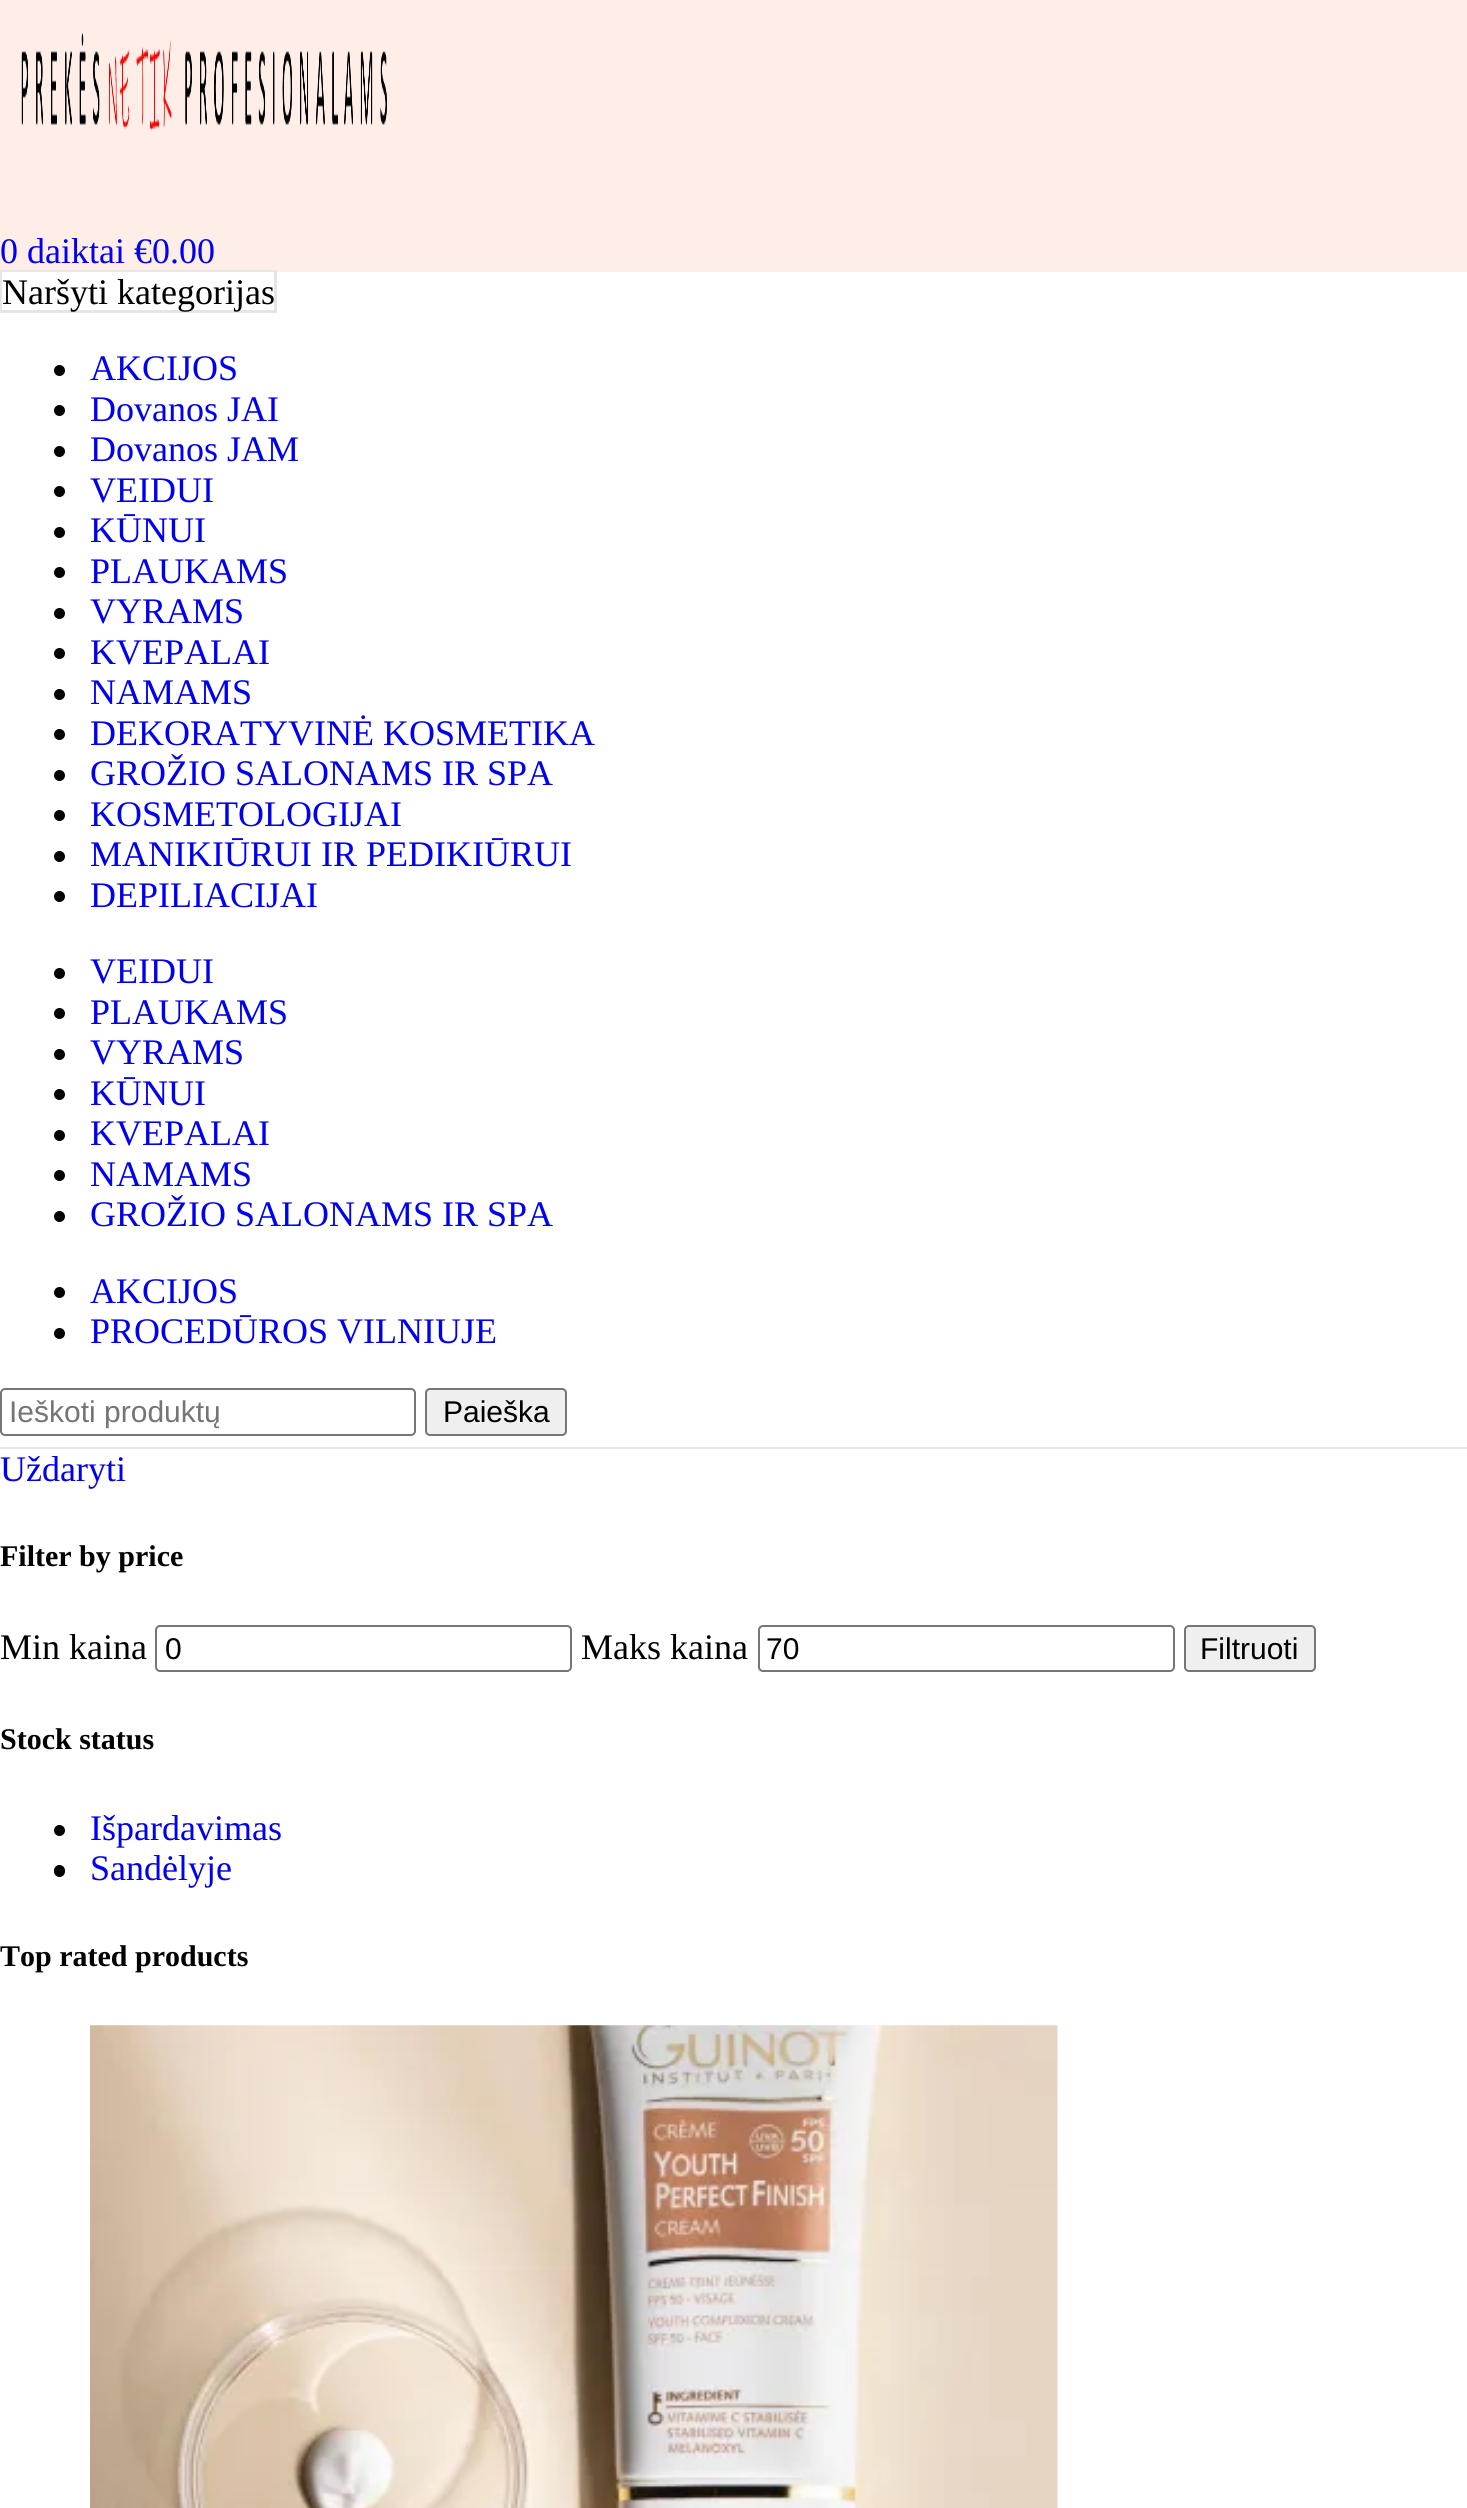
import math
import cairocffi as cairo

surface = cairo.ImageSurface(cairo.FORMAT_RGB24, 1467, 2508)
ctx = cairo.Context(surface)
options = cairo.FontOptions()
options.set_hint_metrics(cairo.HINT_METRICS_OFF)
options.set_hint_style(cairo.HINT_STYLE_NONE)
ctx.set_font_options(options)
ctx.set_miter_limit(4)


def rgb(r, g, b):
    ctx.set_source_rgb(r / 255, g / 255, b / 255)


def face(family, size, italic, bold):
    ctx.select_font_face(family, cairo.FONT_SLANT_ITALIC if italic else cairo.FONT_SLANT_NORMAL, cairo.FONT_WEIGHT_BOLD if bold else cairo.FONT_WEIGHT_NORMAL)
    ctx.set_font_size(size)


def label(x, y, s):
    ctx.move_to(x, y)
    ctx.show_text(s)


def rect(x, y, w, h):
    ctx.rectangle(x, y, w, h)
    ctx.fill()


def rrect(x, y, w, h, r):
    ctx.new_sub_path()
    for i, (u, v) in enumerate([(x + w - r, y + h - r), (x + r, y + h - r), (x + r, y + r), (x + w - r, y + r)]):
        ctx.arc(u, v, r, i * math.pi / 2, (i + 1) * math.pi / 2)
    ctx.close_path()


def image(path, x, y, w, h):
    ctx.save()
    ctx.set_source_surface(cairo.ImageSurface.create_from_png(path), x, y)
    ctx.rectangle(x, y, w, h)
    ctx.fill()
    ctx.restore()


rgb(255, 255, 255)
ctx.paint()
rgb(255, 238, 231)
rect(0, 0, 1467, 272)
image('image0.png', 21, 33, 366, 99)
face('Liberation Serif', 36, 0, 0)
rgb(0, 0, 238)
label(0, 263, '0 daiktai €0.00')
rgb(230, 230, 230)
rect(0, 1447, 1467, 2)
rgb(255, 255, 255)
rect(0, 270, 277, 2)
rgb(230, 230, 230)
ctx.new_path()
ctx.move_to(2, 270)
ctx.line_to(277, 270)
ctx.line_to(274, 272)
ctx.line_to(2, 272)
ctx.close_path()
ctx.fill()
ctx.set_source_rgba(0.506, 0.506, 0.506, 0.2)
ctx.new_path()
ctx.move_to(277, 270)
ctx.line_to(277, 313)
ctx.line_to(274, 310)
ctx.line_to(274, 272)
ctx.close_path()
ctx.fill()
ctx.new_path()
ctx.move_to(277, 313)
ctx.line_to(2, 313)
ctx.line_to(2, 310)
ctx.line_to(274, 310)
ctx.close_path()
ctx.fill()
rgb(0, 0, 0)
label(2, 304, 'Naršyti kategorijas')
rgb(230, 230, 230)
ctx.new_path()
ctx.move_to(0, 270)
ctx.line_to(2, 270)
ctx.line_to(2, 272)
ctx.close_path()
ctx.move_to(2, 313)
ctx.line_to(0, 313)
ctx.line_to(2, 310.5)
ctx.close_path()
ctx.fill()
ctx.set_source_rgba(0.506, 0.506, 0.506, 0.2)
ctx.new_path()
ctx.move_to(0, 313)
ctx.line_to(0, 270)
ctx.line_to(2, 272)
ctx.line_to(2, 310)
ctx.close_path()
ctx.fill()
rgb(0, 0, 0)
ctx.arc(59.5, 370.5, 5.5, 0, 2 * math.pi)
ctx.fill()
rgb(0, 0, 238)
label(90, 380, 'AKCIJOS')
rgb(0, 0, 0)
ctx.new_path()
ctx.arc(59.5, 410.5, 5.5, 0, 2 * math.pi)
ctx.fill()
rgb(0, 0, 238)
label(90, 421, 'Dovanos JAI')
rgb(0, 0, 0)
ctx.new_path()
ctx.arc(59.5, 451.5, 5.5, 0, 2 * math.pi)
ctx.fill()
rgb(0, 0, 238)
label(90, 461, 'Dovanos JAM')
rgb(0, 0, 0)
ctx.new_path()
ctx.arc(59.5, 491.5, 5.5, 0, 2 * math.pi)
ctx.fill()
rgb(0, 0, 238)
label(90, 502, 'VEIDUI')
rgb(0, 0, 0)
ctx.new_path()
ctx.arc(59.5, 532.5, 5.5, 0, 2 * math.pi)
ctx.fill()
rgb(0, 0, 238)
label(90, 542, 'KŪNUI')
rgb(0, 0, 0)
ctx.new_path()
ctx.arc(59.5, 572.5, 5.5, 0, 2 * math.pi)
ctx.fill()
rgb(0, 0, 238)
label(90, 583, 'PLAUKAMS')
rgb(0, 0, 0)
ctx.new_path()
ctx.arc(59.5, 613.5, 5.5, 0, 2 * math.pi)
ctx.fill()
rgb(0, 0, 238)
label(90, 623, 'VYRAMS')
rgb(0, 0, 0)
ctx.new_path()
ctx.arc(59.5, 653.5, 5.5, 0, 2 * math.pi)
ctx.fill()
rgb(0, 0, 238)
label(90, 664, 'KVEPALAI')
rgb(0, 0, 0)
ctx.new_path()
ctx.arc(59.5, 694.5, 5.5, 0, 2 * math.pi)
ctx.fill()
rgb(0, 0, 238)
label(90, 704, 'NAMAMS')
rgb(0, 0, 0)
ctx.new_path()
ctx.arc(59.5, 734.5, 5.5, 0, 2 * math.pi)
ctx.fill()
rgb(0, 0, 238)
label(90, 745, 'DEKORATYVINĖ KOSMETIKA')
rgb(0, 0, 0)
ctx.new_path()
ctx.arc(59.5, 775.5, 5.5, 0, 2 * math.pi)
ctx.fill()
rgb(0, 0, 238)
label(90, 785, 'GROŽIO SALONAMS IR SPA')
rgb(0, 0, 0)
ctx.new_path()
ctx.arc(59.5, 815.5, 5.5, 0, 2 * math.pi)
ctx.fill()
rgb(0, 0, 238)
label(90, 826, 'KOSMETOLOGIJAI')
rgb(0, 0, 0)
ctx.new_path()
ctx.arc(59.5, 856.5, 5.5, 0, 2 * math.pi)
ctx.fill()
rgb(0, 0, 238)
label(90, 866, 'MANIKIŪRUI IR PEDIKIŪRUI')
rgb(0, 0, 0)
ctx.new_path()
ctx.arc(59.5, 896.5, 5.5, 0, 2 * math.pi)
ctx.fill()
rgb(0, 0, 238)
label(90, 907, 'DEPILIACIJAI')
rgb(0, 0, 0)
ctx.new_path()
ctx.arc(59.5, 973.5, 5.5, 0, 2 * math.pi)
ctx.fill()
rgb(0, 0, 238)
label(90, 983, 'VEIDUI')
rgb(0, 0, 0)
ctx.new_path()
ctx.arc(59.5, 1013.5, 5.5, 0, 2 * math.pi)
ctx.fill()
rgb(0, 0, 238)
label(90, 1024, 'PLAUKAMS')
rgb(0, 0, 0)
ctx.new_path()
ctx.arc(59.5, 1054.5, 5.5, 0, 2 * math.pi)
ctx.fill()
rgb(0, 0, 238)
label(90, 1064, 'VYRAMS')
rgb(0, 0, 0)
ctx.new_path()
ctx.arc(59.5, 1094.5, 5.5, 0, 2 * math.pi)
ctx.fill()
rgb(0, 0, 238)
label(90, 1105, 'KŪNUI')
rgb(0, 0, 0)
ctx.new_path()
ctx.arc(59.5, 1135.5, 5.5, 0, 2 * math.pi)
ctx.fill()
rgb(0, 0, 238)
label(90, 1145, 'KVEPALAI')
rgb(0, 0, 0)
ctx.new_path()
ctx.arc(59.5, 1175.5, 5.5, 0, 2 * math.pi)
ctx.fill()
rgb(0, 0, 238)
label(90, 1186, 'NAMAMS')
rgb(0, 0, 0)
ctx.new_path()
ctx.arc(59.5, 1216.5, 5.5, 0, 2 * math.pi)
ctx.fill()
rgb(0, 0, 238)
label(90, 1226, 'GROŽIO SALONAMS IR SPA')
rgb(0, 0, 0)
ctx.new_path()
ctx.arc(59.5, 1292.5, 5.5, 0, 2 * math.pi)
ctx.fill()
rgb(0, 0, 238)
label(90, 1303, 'AKCIJOS')
rgb(0, 0, 0)
ctx.new_path()
ctx.arc(59.5, 1333.5, 5.5, 0, 2 * math.pi)
ctx.fill()
rgb(0, 0, 238)
label(90, 1343, 'PROCEDŪROS VILNIUJE')
rrect(1, 1389, 414, 46, 4)
rgb(118, 118, 118)
ctx.stroke()
face('Liberation Sans', 30, 0, 0)
rgb(117, 117, 117)
label(9, 1422, 'Ieškoti produktų')
rgb(239, 239, 239)
rrect(426, 1389, 140, 46, 4)
ctx.fill_preserve()
rgb(118, 118, 118)
ctx.stroke()
rgb(0, 0, 0)
label(443, 1422, 'Paieška')
face('Liberation Serif', 36, 0, 0)
rgb(0, 0, 238)
label(0, 1481, 'Uždaryti')
face('Liberation Serif', 30, 0, 1)
rgb(0, 0, 0)
label(0, 1566, 'Filter by price')
face('Liberation Serif', 36, 0, 0)
label(0, 1659, 'Min kaina')
rrect(156, 1626, 415, 45, 4)
rgb(118, 118, 118)
ctx.stroke()
face('Liberation Sans', 30, 0, 0)
rgb(0, 0, 0)
label(165, 1659, '0')
face('Liberation Serif', 36, 0, 0)
label(581, 1659, 'Maks kaina')
rrect(759, 1626, 415, 45, 4)
rgb(118, 118, 118)
ctx.stroke()
face('Liberation Sans', 30, 0, 0)
rgb(0, 0, 0)
label(766, 1659, '70')
rgb(239, 239, 239)
rrect(1185, 1626, 130, 45, 4)
ctx.fill_preserve()
rgb(118, 118, 118)
ctx.stroke()
rgb(0, 0, 0)
label(1200, 1659, 'Filtruoti')
face('Liberation Serif', 30, 0, 1)
label(0, 1749, 'Stock status')
ctx.new_path()
ctx.arc(59.5, 1830.5, 5.5, 0, 2 * math.pi)
ctx.fill()
face('Liberation Serif', 36, 0, 0)
rgb(0, 0, 238)
label(90, 1840, 'Išpardavimas')
rgb(0, 0, 0)
rrect(54, 1865, 11, 12, 5.5)
ctx.fill()
rgb(0, 0, 238)
label(90, 1880, 'Sandėlyje')
face('Liberation Serif', 30, 0, 1)
rgb(0, 0, 0)
label(0, 1966, 'Top rated products')
image('image1.png', 90, 2025, 968, 483)
surface.write_to_png('render.png')
